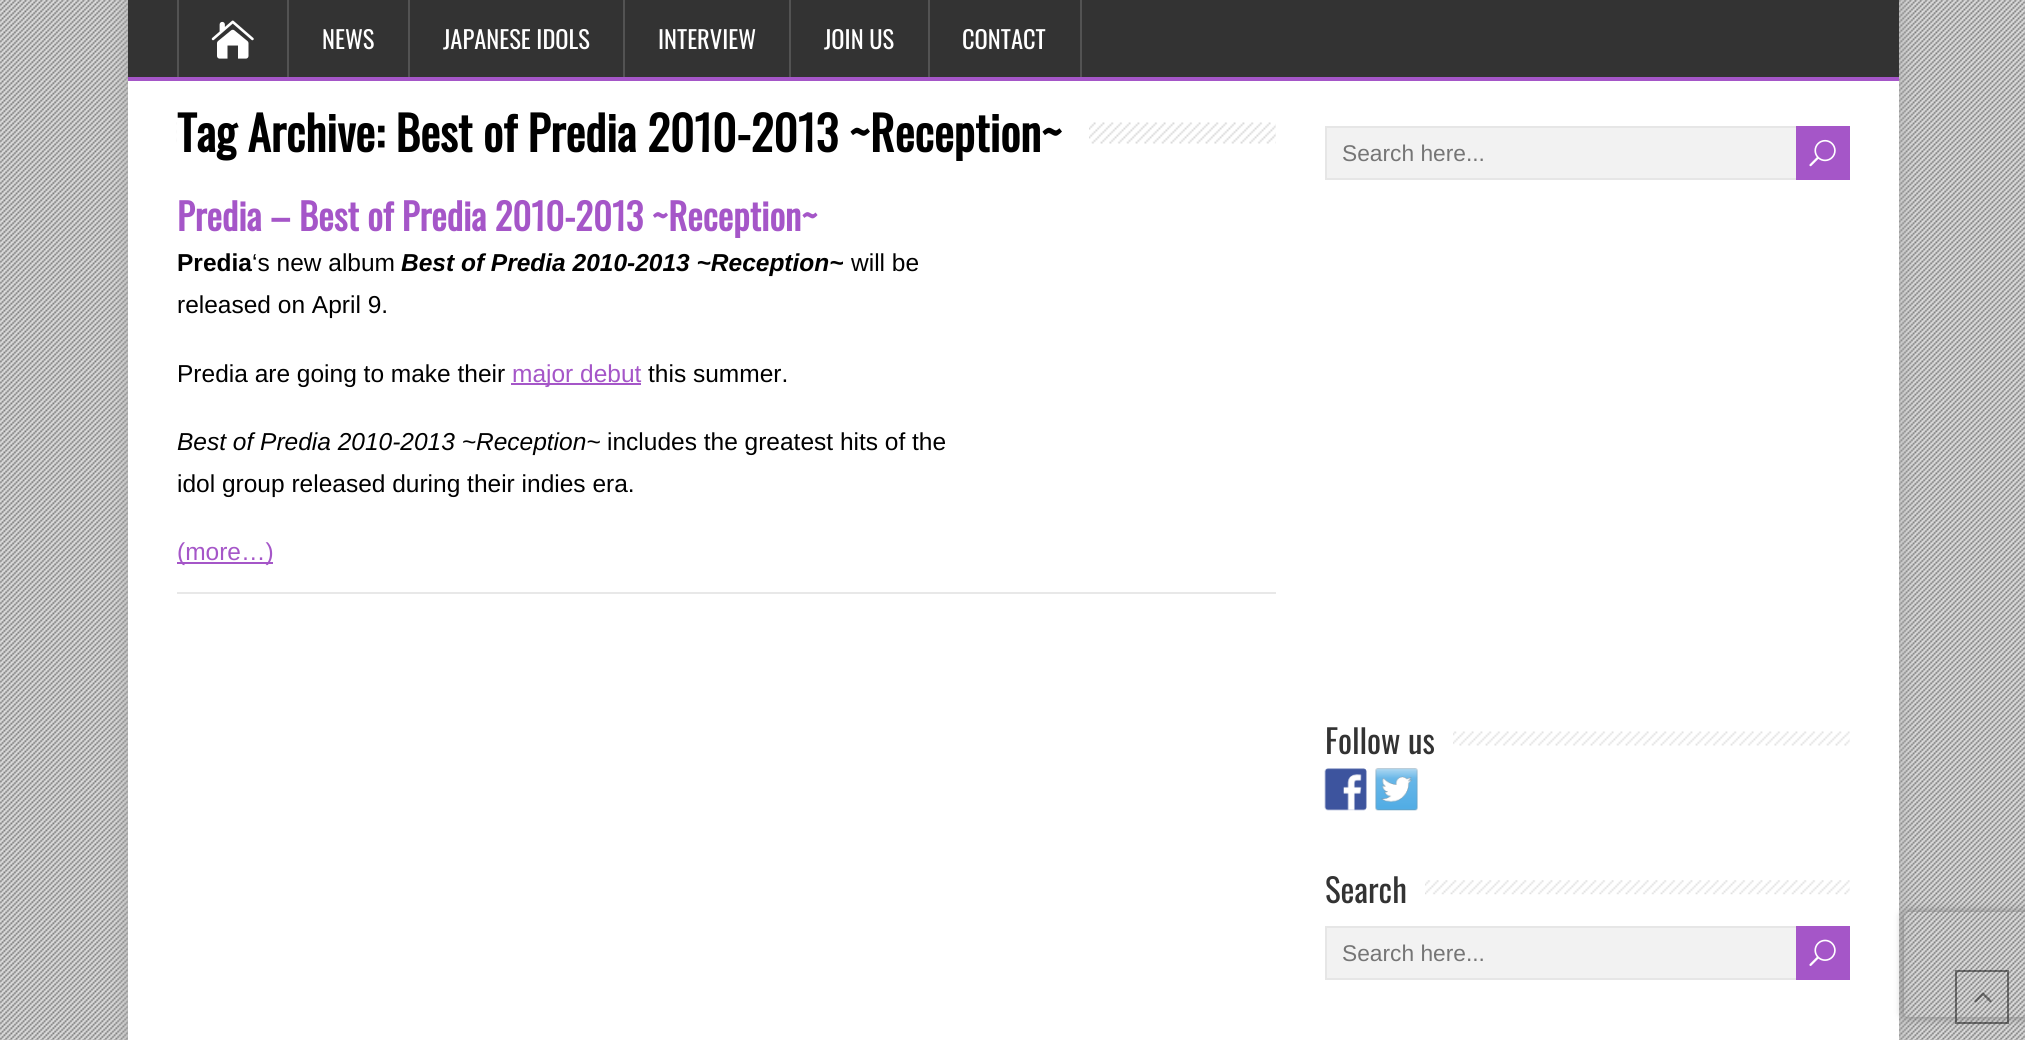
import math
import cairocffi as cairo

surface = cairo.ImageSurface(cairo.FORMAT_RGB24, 2025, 1040)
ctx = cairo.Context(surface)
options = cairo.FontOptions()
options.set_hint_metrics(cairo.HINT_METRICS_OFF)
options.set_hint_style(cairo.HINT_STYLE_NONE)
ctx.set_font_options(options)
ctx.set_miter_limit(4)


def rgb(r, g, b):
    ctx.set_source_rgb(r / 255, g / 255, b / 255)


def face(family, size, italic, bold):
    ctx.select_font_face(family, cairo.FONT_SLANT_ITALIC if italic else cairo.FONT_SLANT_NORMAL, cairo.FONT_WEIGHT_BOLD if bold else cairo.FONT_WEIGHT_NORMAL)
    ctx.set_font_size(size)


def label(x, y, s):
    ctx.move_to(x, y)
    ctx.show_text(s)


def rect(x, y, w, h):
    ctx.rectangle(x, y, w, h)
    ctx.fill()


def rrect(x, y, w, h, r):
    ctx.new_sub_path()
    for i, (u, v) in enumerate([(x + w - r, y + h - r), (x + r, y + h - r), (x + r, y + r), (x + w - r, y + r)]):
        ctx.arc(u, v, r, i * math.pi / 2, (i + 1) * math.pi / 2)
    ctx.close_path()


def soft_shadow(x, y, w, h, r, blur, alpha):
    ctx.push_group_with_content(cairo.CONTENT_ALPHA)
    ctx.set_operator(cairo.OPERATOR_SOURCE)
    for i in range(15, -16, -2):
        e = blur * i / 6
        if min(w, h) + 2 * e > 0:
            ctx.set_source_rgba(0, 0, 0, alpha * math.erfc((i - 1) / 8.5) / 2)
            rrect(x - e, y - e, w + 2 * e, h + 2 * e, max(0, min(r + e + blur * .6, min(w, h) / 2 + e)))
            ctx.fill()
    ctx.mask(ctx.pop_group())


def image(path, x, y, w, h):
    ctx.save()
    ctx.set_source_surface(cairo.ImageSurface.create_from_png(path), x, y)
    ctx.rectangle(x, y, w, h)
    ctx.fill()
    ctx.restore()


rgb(222, 222, 222)
ctx.paint()
image('image0.png', 0, 0, 2025, 1040)
rgb(170, 170, 170)
soft_shadow(128, -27, 1771, 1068, 0, 9, 1)
rgb(255, 255, 255)
rect(128, 81, 1771, 959)
rgb(51, 51, 51)
rect(128, 0, 1771, 77)
rgb(165, 86, 200)
rect(128, 77, 1771, 4)
rgb(83, 83, 83)
rect(287, 0, 2, 77)
rect(177, 0, 2, 77)
image('image1.png', 211, 20, 43, 39)
rect(408, 0, 2, 77)
face('Oswald', 24.5, 0, 0)
rgb(255, 255, 255)
label(322, 49, 'NEWS')
rgb(83, 83, 83)
rect(623, 0, 2, 77)
rgb(255, 255, 255)
label(443, 49, 'JAPANESE IDOLS')
rgb(83, 83, 83)
rect(789, 0, 2, 77)
rgb(255, 255, 255)
label(658, 49, 'INTERVIEW')
rgb(83, 83, 83)
rect(928, 0, 2, 77)
rgb(255, 255, 255)
label(824, 49, 'JOIN US')
rgb(83, 83, 83)
rect(1080, 0, 2, 77)
rgb(255, 255, 255)
label(962, 49, 'CONTACT')
image('image2.png', 176, 122, 1100, 22)
rect(177, 122, 912, 22)
face('Oswald', 47.25, 0, 1)
rgb(0, 0, 0)
label(177, 152, 'Tag Archive: Best of Predia 2010-2013 ~Reception~')
rgb(232, 232, 232)
rect(177, 592, 1099, 2)
face('Oswald', 36.75, 0, 1)
rgb(165, 86, 200)
label(177, 231, 'Predia – Best of Predia 2010-2013 ~Reception~')
face('Liberation Sans', 24.5, 0, 1)
rgb(0, 0, 0)
label(177, 271, 'Predia')
face('Liberation Sans', 24.5, 0, 0)
label(252, 271, '‘s new album')
face('Liberation Sans', 24.5, 1, 1)
label(401, 271, 'Best of Predia 2010-2013 ~Reception~')
face('Liberation Sans', 24.5, 0, 0)
label(851, 271, 'will be')
label(177, 313, 'released on April 9.')
label(177, 382, 'Predia are going to make their')
rgb(165, 86, 200)
rect(511, 383, 130, 2)
label(512, 382, 'major debut')
rgb(0, 0, 0)
label(648, 382, 'this summer.')
face('Liberation Sans', 24.5, 1, 0)
label(177, 450, 'Best of Predia 2010-2013 ~Reception~')
face('Liberation Sans', 24.5, 0, 0)
label(607, 450, 'includes the greatest hits of the')
label(177, 492, 'idol group released during their indies era.')
rgb(165, 86, 200)
rect(177, 562, 96, 2)
label(177, 560, '(more…)')
rgb(242, 242, 242)
rect(1327, 128, 469, 50)
ctx.rectangle(1326, 127, 521, 52)
rgb(230, 230, 230)
ctx.stroke()
face('Liberation Sans', 22.75, 0, 0)
rgb(117, 117, 117)
label(1342, 161, 'Search here...')
rgb(165, 86, 200)
rect(1796, 126, 54, 54)
image('image3.png', 1809, 139, 27, 28)
image('image4.png', 1324, 731, 526, 15)
rgb(255, 255, 255)
rect(1325, 731, 128, 15)
face('Oswald', 33, 0, 0)
rgb(51, 51, 51)
label(1325, 754, 'Follow us')
image('image5.png', 1324, 768, 43, 43)
image('image6.png', 1375, 768, 43, 43)
image('image7.png', 1324, 880, 526, 15)
rgb(255, 255, 255)
rect(1325, 880, 100, 15)
rgb(51, 51, 51)
label(1325, 903, 'Search')
rgb(242, 242, 242)
rect(1327, 928, 469, 50)
ctx.rectangle(1326, 927, 521, 52)
rgb(230, 230, 230)
ctx.stroke()
face('Liberation Sans', 22.75, 0, 0)
rgb(117, 117, 117)
label(1342, 961, 'Search here...')
rgb(165, 86, 200)
rect(1796, 926, 54, 54)
image('image8.png', 1809, 939, 27, 27)
ctx.save()
ctx.set_fill_rule(cairo.FILL_RULE_EVEN_ODD)
ctx.new_path()
ctx.move_to(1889, 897)
ctx.line_to(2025, 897)
ctx.line_to(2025, 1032)
ctx.line_to(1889, 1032)
ctx.close_path()
ctx.move_to(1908, 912)
ctx.line_to(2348, 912)
ctx.curve_to(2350, 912, 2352, 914, 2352, 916)
ctx.line_to(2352, 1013)
ctx.curve_to(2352, 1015, 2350, 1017, 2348, 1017)
ctx.line_to(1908, 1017)
ctx.curve_to(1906, 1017, 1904, 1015, 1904, 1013)
ctx.line_to(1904, 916)
ctx.curve_to(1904, 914, 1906, 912, 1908, 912)
ctx.close_path()
ctx.clip()
rgb(128, 128, 128)
soft_shadow(1904, 912, 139, 105, 4, 4.5, 1)
ctx.restore()
ctx.rectangle(1956, 971, 52, 52)
ctx.set_source_rgba(0.067, 0.067, 0.067, 0.5)
ctx.stroke()
image('image9.png', 1974, 992, 18, 11)
surface.write_to_png('render.png')
